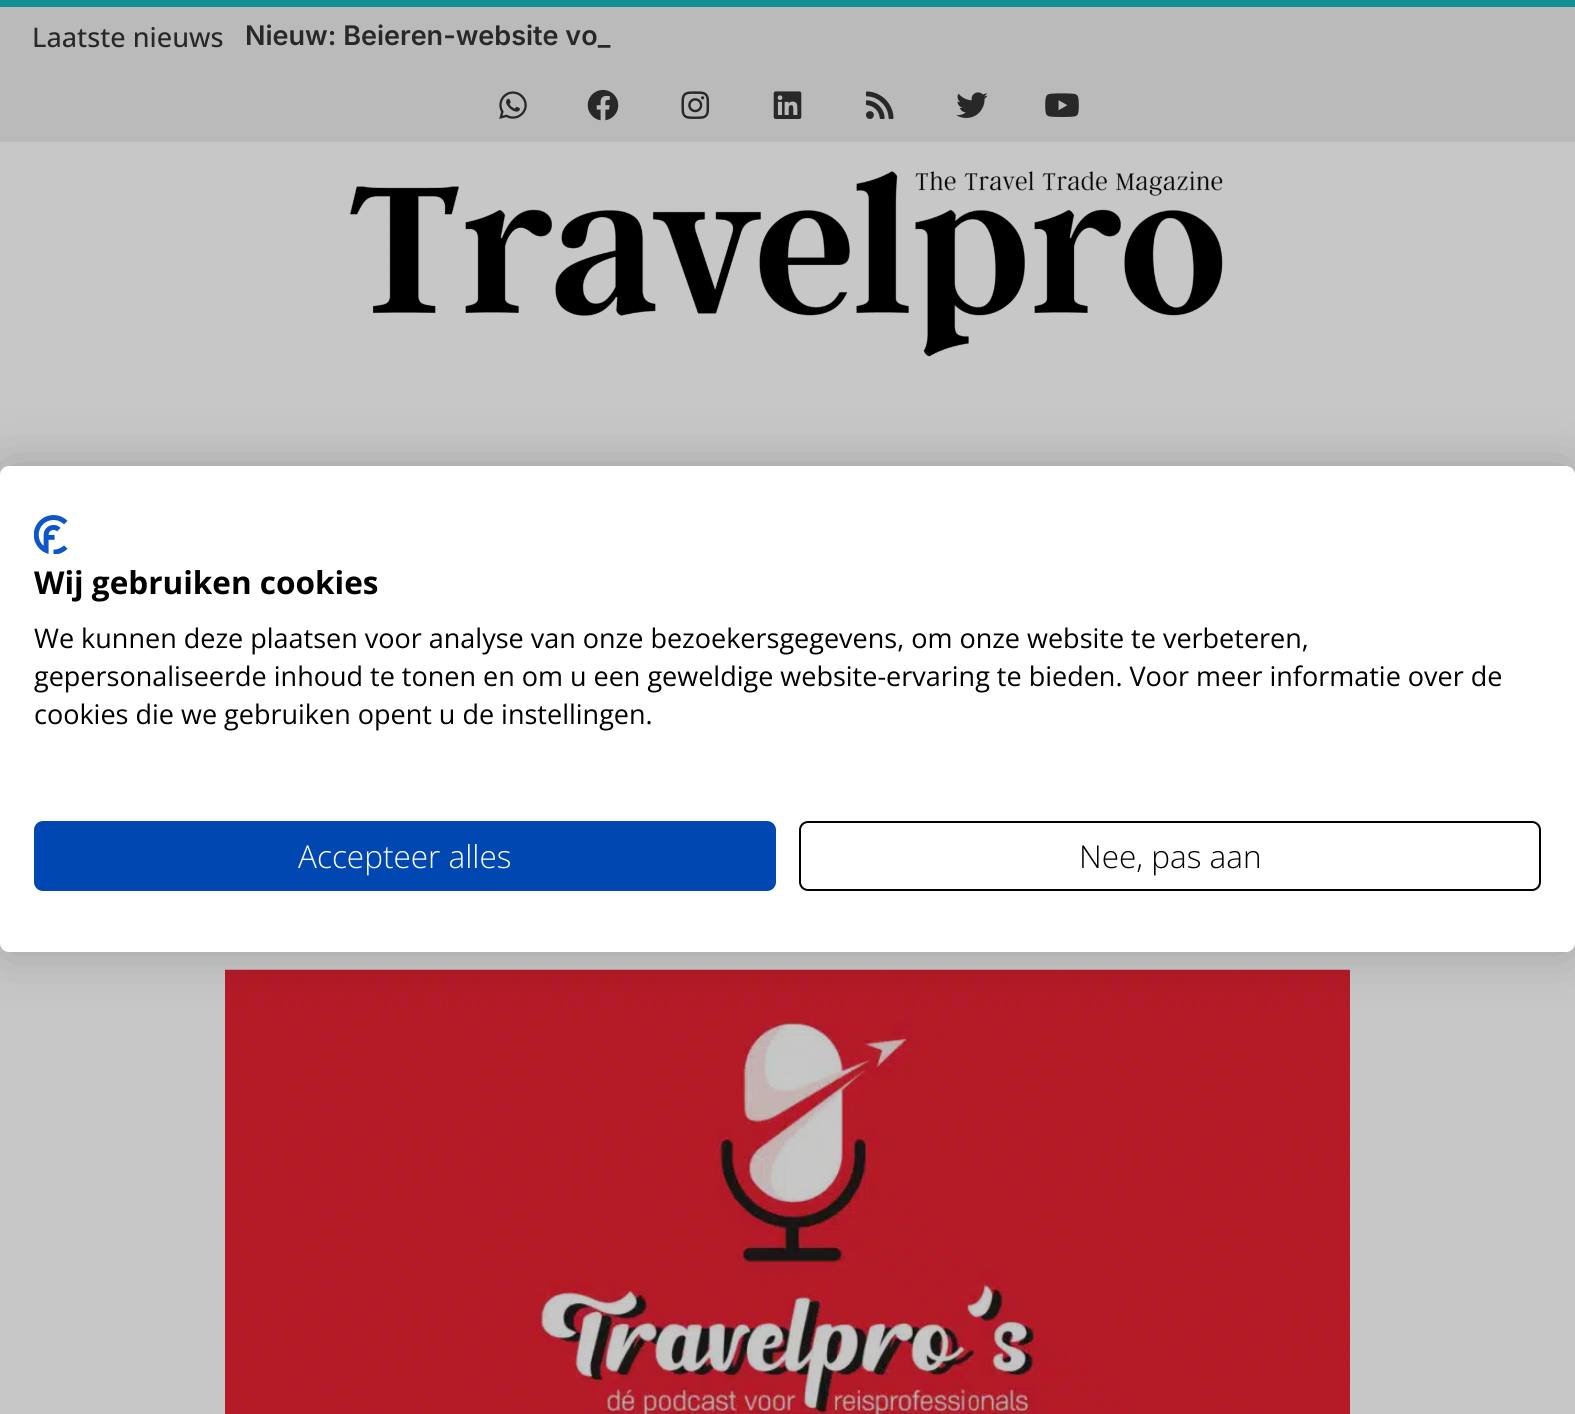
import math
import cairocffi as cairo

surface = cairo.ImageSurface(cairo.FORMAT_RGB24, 1575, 1414)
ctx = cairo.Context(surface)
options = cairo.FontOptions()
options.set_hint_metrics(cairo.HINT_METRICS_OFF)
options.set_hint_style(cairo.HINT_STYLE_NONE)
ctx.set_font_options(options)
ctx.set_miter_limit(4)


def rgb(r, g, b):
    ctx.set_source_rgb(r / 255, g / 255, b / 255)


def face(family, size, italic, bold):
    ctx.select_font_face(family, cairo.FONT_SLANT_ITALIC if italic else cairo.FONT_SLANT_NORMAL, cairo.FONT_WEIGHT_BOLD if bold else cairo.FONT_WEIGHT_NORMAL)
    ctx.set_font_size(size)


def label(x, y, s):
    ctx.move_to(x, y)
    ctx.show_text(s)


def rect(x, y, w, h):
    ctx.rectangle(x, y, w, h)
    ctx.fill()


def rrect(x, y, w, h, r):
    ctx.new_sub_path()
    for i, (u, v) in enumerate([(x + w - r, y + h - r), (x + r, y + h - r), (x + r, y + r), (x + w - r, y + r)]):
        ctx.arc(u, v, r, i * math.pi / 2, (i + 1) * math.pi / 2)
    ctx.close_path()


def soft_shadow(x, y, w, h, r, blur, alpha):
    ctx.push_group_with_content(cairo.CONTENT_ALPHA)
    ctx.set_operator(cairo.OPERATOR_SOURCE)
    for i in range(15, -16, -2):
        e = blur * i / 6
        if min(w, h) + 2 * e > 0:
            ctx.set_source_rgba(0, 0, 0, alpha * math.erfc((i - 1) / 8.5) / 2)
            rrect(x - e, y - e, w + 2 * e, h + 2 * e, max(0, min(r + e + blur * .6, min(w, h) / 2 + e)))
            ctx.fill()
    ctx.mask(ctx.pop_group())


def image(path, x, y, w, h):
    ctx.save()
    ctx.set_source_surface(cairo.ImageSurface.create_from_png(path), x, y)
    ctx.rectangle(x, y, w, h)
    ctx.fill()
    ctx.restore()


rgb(199, 199, 199)
ctx.paint()
rgb(186, 186, 186)
rect(0, 7, 1575, 135)
rgb(20, 144, 147)
rect(0, 0, 1575, 7)
face('Open Sans Medium', 27, 0, 0)
rgb(40, 40, 40)
label(32, 47, 'Laatste nieuws')
face('Inter SemiBold', 27, 0, 0)
label(245, 45, 'Nieuw: Beieren-website vo_')
image('image0.png', 499, 91, 28, 28)
image('image1.png', 587, 89, 32, 32)
image('image2.png', 681, 91, 29, 28)
image('image3.png', 773, 91, 29, 28)
image('image4.png', 865, 91, 29, 28)
image('image5.png', 956, 92, 32, 26)
image('image6.png', 1045, 93, 34, 24)
image('image7.png', 350, 171, 873, 186)
image('image9.png', 225, 969, 1125, 445)
rgb(0, 0, 0)
soft_shadow(0, 466, 1575, 486, 9, 27, 0.2)
rgb(255, 255, 255)
rrect(0, 466, 1575, 486, 9)
ctx.fill()
image('image8.png', 34, 515, 34, 39)
face('Open Sans', 31.5, 0, 1)
rgb(0, 0, 0)
label(34, 594, 'Wij gebruiken cookies')
face('Open Sans', 27, 0, 0)
label(34, 648, 'We kunnen deze plaatsen voor analyse van onze bezoekersgegevens, om onze website te verbeteren,')
label(34, 686, 'gepersonaliseerde inhoud te tonen en om u een geweldige website-ervaring te bieden. Voor meer informatie over de')
label(34, 724, 'cookies die we gebruiken opent u de instellingen.')
rgb(0, 71, 178)
rrect(35, 822, 740, 68, 8)
ctx.fill_preserve()
ctx.stroke()
face('Open Sans Light', 31.5, 0, 0)
rgb(255, 255, 255)
label(298, 868, 'Accepteer alles')
rrect(800, 822, 740, 68, 8)
rgb(0, 0, 0)
ctx.stroke()
label(1079, 868, 'Nee, pas aan')
surface.write_to_png('render.png')
